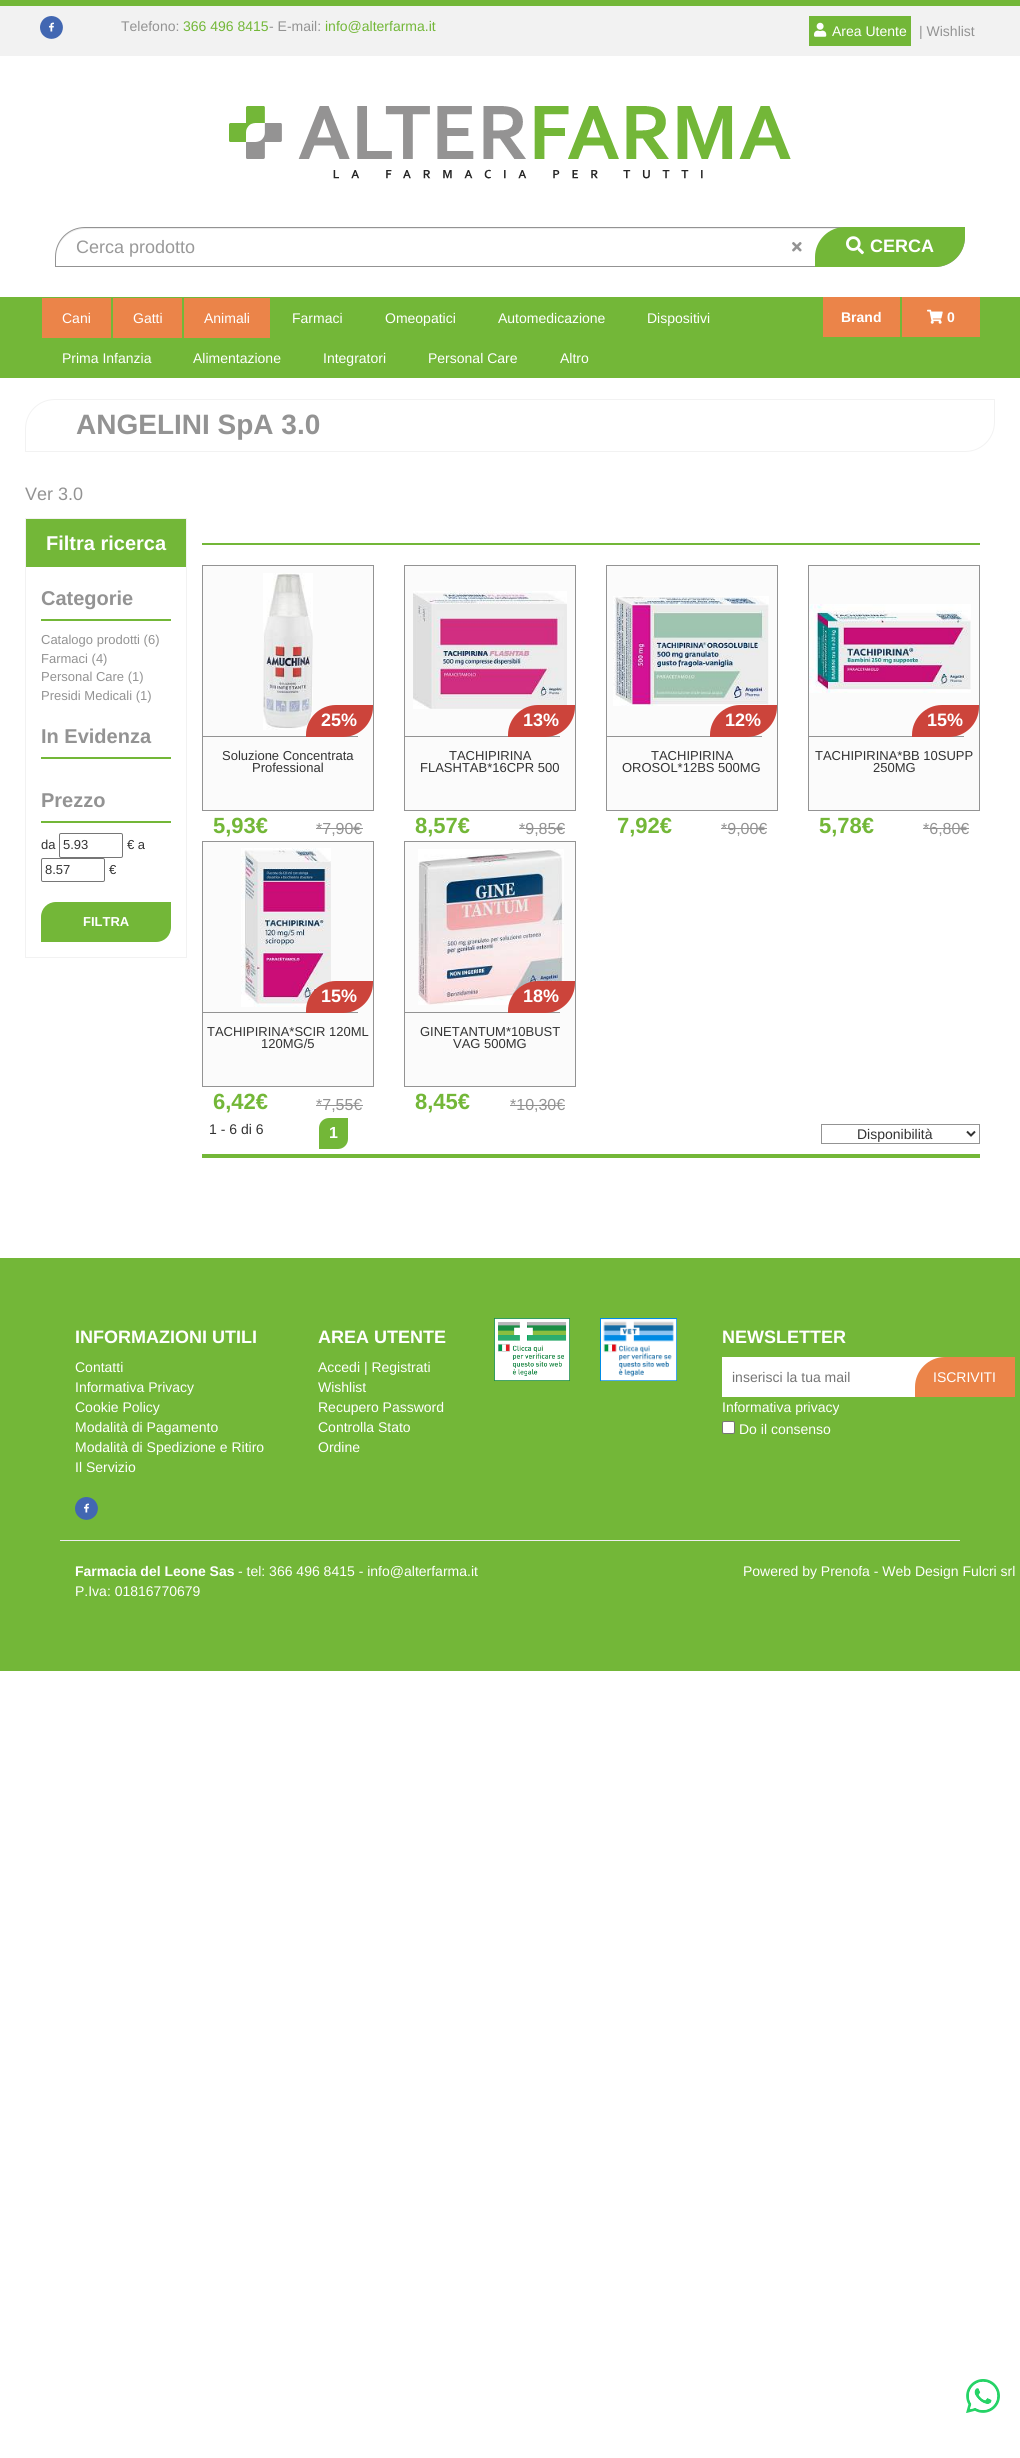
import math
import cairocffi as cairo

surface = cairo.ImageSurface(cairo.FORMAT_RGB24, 1020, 2458)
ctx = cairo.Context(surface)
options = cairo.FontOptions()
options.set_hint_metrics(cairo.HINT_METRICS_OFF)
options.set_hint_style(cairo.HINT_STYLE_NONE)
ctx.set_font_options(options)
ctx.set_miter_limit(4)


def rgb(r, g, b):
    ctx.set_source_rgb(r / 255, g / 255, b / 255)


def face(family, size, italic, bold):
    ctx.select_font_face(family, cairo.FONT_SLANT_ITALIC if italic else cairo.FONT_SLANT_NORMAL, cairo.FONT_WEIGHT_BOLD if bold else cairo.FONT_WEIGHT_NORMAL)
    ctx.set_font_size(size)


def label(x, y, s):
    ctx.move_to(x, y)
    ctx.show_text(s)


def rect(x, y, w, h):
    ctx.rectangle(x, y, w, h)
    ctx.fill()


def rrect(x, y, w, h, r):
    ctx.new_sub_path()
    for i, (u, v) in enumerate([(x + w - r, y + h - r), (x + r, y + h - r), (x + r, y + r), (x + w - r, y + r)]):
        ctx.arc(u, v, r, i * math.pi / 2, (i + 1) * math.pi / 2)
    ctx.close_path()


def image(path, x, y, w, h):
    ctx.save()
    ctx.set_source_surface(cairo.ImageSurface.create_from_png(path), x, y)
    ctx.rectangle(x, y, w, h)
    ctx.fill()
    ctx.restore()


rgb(255, 255, 255)
ctx.paint()
rgb(242, 242, 242)
rect(0, 6, 1020, 50)
rgb(115, 183, 56)
rect(0, 0, 1020, 6)
image('image0.png', 40, 16, 23, 23)
face('Liberation Sans', 14, 0, 0)
rgb(147, 147, 147)
label(121, 31, 'Telefono:')
rgb(115, 183, 56)
label(183, 31, '366 496 8415')
rgb(147, 147, 147)
label(269, 31, '- E-mail:')
rgb(115, 183, 56)
label(325, 31, 'info@alterfarma.it')
rect(809, 16, 102, 30)
image('image1.png', 814, 22, 13, 15)
rgb(255, 255, 255)
label(832, 36, 'Area Utente')
rgb(147, 147, 147)
label(919, 36, '| Wishlist')
image('image2.png', 229, 106, 562, 73)
rgb(236, 236, 236)
ctx.new_path()
ctx.move_to(85, 229)
ctx.line_to(964, 229)
ctx.line_to(964, 228)
ctx.line_to(85, 228)
ctx.curve_to(69, 228, 56, 241, 56, 257)
ctx.line_to(56, 258)
ctx.curve_to(56, 242, 69, 229, 85, 229)
ctx.close_path()
ctx.fill()
ctx.new_path()
ctx.move_to(85, 227.5)
ctx.line_to(964.5, 227.5)
ctx.line_to(964.5, 237)
ctx.curve_to(964.5, 253.5, 951.5, 266.5, 935, 266.5)
ctx.line_to(55.5, 266.5)
ctx.line_to(55.5, 257)
ctx.curve_to(55.5, 240.5, 68.5, 227.5, 85, 227.5)
ctx.close_path()
rgb(147, 147, 147)
ctx.set_line_width(1)
ctx.stroke()
face('Liberation Sans', 18, 0, 0)
rgb(153, 153, 153)
label(76, 253, 'Cerca prodotto')
image('image3.png', 792, 242, 10, 10)
rgb(115, 183, 56)
ctx.new_path()
ctx.move_to(845, 227)
ctx.line_to(965, 227)
ctx.line_to(965, 237)
ctx.curve_to(965, 253.5, 951.5, 267, 935, 267)
ctx.line_to(815, 267)
ctx.line_to(815, 257)
ctx.curve_to(815, 240.5, 828.5, 227, 845, 227)
ctx.close_path()
ctx.fill()
image('image4.png', 846, 236, 18, 19)
face('Liberation Sans', 18, 0, 1)
rgb(255, 255, 255)
label(870, 252, 'CERCA')
rgb(115, 183, 56)
rect(0, 297, 1020, 81)
rgb(235, 132, 73)
rect(42, 298, 69, 40)
face('Liberation Sans', 14, 0, 0)
rgb(255, 255, 255)
label(62, 323, 'Cani')
rgb(235, 132, 73)
rect(113, 298, 69, 40)
rgb(255, 255, 255)
label(133, 323, 'Gatti')
rgb(235, 132, 73)
rect(184, 298, 86, 40)
rgb(255, 255, 255)
label(204, 323, 'Animali')
label(292, 323, 'Farmaci')
label(385, 323, 'Omeopatici')
label(498, 323, 'Automedicazione')
label(647, 323, 'Dispositivi')
label(62, 363, 'Prima Infanzia')
label(193, 363, 'Alimentazione')
label(323, 363, 'Integratori')
label(428, 363, 'Personal Care')
label(560, 363, 'Altro')
rgb(235, 132, 73)
rect(823, 297, 77, 40)
face('Liberation Sans', 14, 0, 1)
rgb(255, 255, 255)
label(841, 322, 'Brand')
rgb(235, 132, 73)
rect(902, 297, 78, 40)
image('image5.png', 927, 309, 16, 15)
rgb(255, 255, 255)
label(947, 322, '0')
ctx.new_path()
ctx.move_to(55, 399.5)
ctx.line_to(994.5, 399.5)
ctx.line_to(994.5, 422)
ctx.curve_to(994.5, 438.5, 981.5, 451.5, 965, 451.5)
ctx.line_to(25.5, 451.5)
ctx.line_to(25.5, 429)
ctx.curve_to(25.5, 412.5, 38.5, 399.5, 55, 399.5)
ctx.close_path()
rgb(242, 242, 242)
ctx.stroke()
face('Liberation Sans', 28, 0, 1)
rgb(147, 147, 147)
label(76, 434, 'ANGELINI SpA 3.0')
face('Liberation Sans', 18, 0, 0)
label(25, 500, 'Ver 3.0')
ctx.rectangle(25.5, 518.5, 161, 439)
rgb(242, 242, 242)
ctx.stroke()
rgb(115, 183, 56)
rect(26, 519, 160, 48)
face('Liberation Sans', 20, 0, 1)
rgb(255, 255, 255)
label(46, 550, 'Filtra ricerca')
rgb(115, 183, 56)
rect(41, 619, 130, 2)
rgb(147, 147, 147)
label(41, 605, 'Categorie')
face('Liberation Sans', 13, 0, 0)
label(41, 644, 'Catalogo prodotti (6)')
label(41, 663, 'Farmaci (4)')
label(41, 681, 'Personal Care (1)')
label(41, 700, 'Presidi Medicali (1)')
rgb(115, 183, 56)
rect(41, 757, 130, 2)
face('Liberation Sans', 20, 0, 1)
rgb(147, 147, 147)
label(41, 743, 'In Evidenza')
rgb(115, 183, 56)
rect(41, 821, 130, 2)
rgb(147, 147, 147)
label(41, 807, 'Prezzo')
face('Liberation Sans', 13, 0, 0)
rgb(51, 51, 51)
label(41, 849, 'da')
rrect(59.5, 833.5, 63, 24, 1.5)
rgb(118, 118, 118)
ctx.stroke()
rgb(51, 51, 51)
label(63, 849, '5.93')
label(127, 849, '€ a')
rrect(41.5, 858.5, 63, 23, 1.5)
rgb(118, 118, 118)
ctx.stroke()
rgb(51, 51, 51)
label(45, 874, '8.57')
label(109, 874, '€')
rgb(115, 183, 56)
ctx.new_path()
ctx.move_to(56, 902)
ctx.line_to(171, 902)
ctx.line_to(171, 927)
ctx.curve_to(171, 935.5, 164.5, 942, 156, 942)
ctx.line_to(41, 942)
ctx.line_to(41, 917)
ctx.curve_to(41, 908.5, 47.5, 902, 56, 902)
ctx.close_path()
ctx.fill()
face('Liberation Sans', 13, 0, 1)
rgb(255, 255, 255)
label(83, 926, 'FILTRA')
rgb(115, 183, 56)
rect(202, 543, 778, 2)
rgb(251, 251, 251)
ctx.rectangle(202.5, 565.5, 171, 245)
ctx.fill_preserve()
rgb(147, 147, 147)
ctx.stroke()
rect(203, 736, 155, 1)
image('image6.png', 263, 573, 50, 157)
rgb(204, 68, 59)
ctx.new_path()
ctx.move_to(336, 705)
ctx.line_to(373, 705)
ctx.line_to(373, 707)
ctx.curve_to(373, 723.5, 359.5, 737, 343, 737)
ctx.line_to(306, 737)
ctx.line_to(306, 735)
ctx.curve_to(306, 718.5, 319.5, 705, 336, 705)
ctx.close_path()
ctx.fill()
face('Liberation Sans', 18, 0, 1)
rgb(255, 255, 255)
label(321, 726, '25%')
face('Liberation Sans', 13, 0, 0)
rgb(51, 51, 51)
label(222, 760, 'Soluzione Concentrata')
label(252, 772, 'Professional')
face('Liberation Sans', 22, 0, 1)
rgb(115, 183, 56)
label(213, 833, '5,93€')
face('Liberation Sans', 16, 0, 0)
rgb(147, 147, 147)
label(316, 834, '*7,90€')
rect(316, 828, 47, 1)
rgb(251, 251, 251)
ctx.rectangle(404.5, 565.5, 171, 245)
ctx.fill_preserve()
rgb(147, 147, 147)
ctx.stroke()
rect(405, 736, 155, 1)
image('image7.png', 413, 591, 154, 118)
rgb(204, 68, 59)
ctx.new_path()
ctx.move_to(538, 705)
ctx.line_to(575, 705)
ctx.line_to(575, 707)
ctx.curve_to(575, 723.5, 561.5, 737, 545, 737)
ctx.line_to(508, 737)
ctx.line_to(508, 735)
ctx.curve_to(508, 718.5, 521.5, 705, 538, 705)
ctx.close_path()
ctx.fill()
face('Liberation Sans', 18, 0, 1)
rgb(255, 255, 255)
label(523, 726, '13%')
face('Liberation Sans', 13, 0, 0)
rgb(51, 51, 51)
label(449, 760, 'TACHIPIRINA')
label(420, 772, 'FLASHTAB*16CPR 500')
face('Liberation Sans', 22, 0, 1)
rgb(115, 183, 56)
label(415, 833, '8,57€')
face('Liberation Sans', 16, 0, 0)
rgb(147, 147, 147)
label(519, 834, '*9,85€')
rect(519, 828, 46, 1)
rgb(251, 251, 251)
ctx.rectangle(606.5, 565.5, 171, 245)
ctx.fill_preserve()
rgb(147, 147, 147)
ctx.stroke()
rect(607, 736, 155, 1)
image('image8.png', 613, 596, 156, 110)
rgb(204, 68, 59)
ctx.new_path()
ctx.move_to(740, 705)
ctx.line_to(777, 705)
ctx.line_to(777, 707)
ctx.curve_to(777, 723.5, 763.5, 737, 747, 737)
ctx.line_to(710, 737)
ctx.line_to(710, 735)
ctx.curve_to(710, 718.5, 723.5, 705, 740, 705)
ctx.close_path()
ctx.fill()
face('Liberation Sans', 18, 0, 1)
rgb(255, 255, 255)
label(725, 726, '12%')
face('Liberation Sans', 13, 0, 0)
rgb(51, 51, 51)
label(651, 760, 'TACHIPIRINA')
label(622, 772, 'OROSOL*12BS 500MG')
face('Liberation Sans', 22, 0, 1)
rgb(115, 183, 56)
label(617, 833, '7,92€')
face('Liberation Sans', 16, 0, 0)
rgb(147, 147, 147)
label(721, 834, '*9,00€')
rect(721, 828, 46, 1)
rgb(251, 251, 251)
ctx.rectangle(808.5, 565.5, 171, 245)
ctx.fill_preserve()
rgb(147, 147, 147)
ctx.stroke()
rect(809, 736, 155, 1)
image('image9.png', 809, 604, 162, 89)
rgb(204, 68, 59)
ctx.new_path()
ctx.move_to(942, 705)
ctx.line_to(979, 705)
ctx.line_to(979, 707)
ctx.curve_to(979, 723.5, 965.5, 737, 949, 737)
ctx.line_to(912, 737)
ctx.line_to(912, 735)
ctx.curve_to(912, 718.5, 925.5, 705, 942, 705)
ctx.close_path()
ctx.fill()
face('Liberation Sans', 18, 0, 1)
rgb(255, 255, 255)
label(927, 726, '15%')
face('Liberation Sans', 13, 0, 0)
rgb(51, 51, 51)
label(815, 760, 'TACHIPIRINA*BB 10SUPP')
label(873, 772, '250MG')
face('Liberation Sans', 22, 0, 1)
rgb(115, 183, 56)
label(819, 833, '5,78€')
face('Liberation Sans', 16, 0, 0)
rgb(147, 147, 147)
label(923, 834, '*6,80€')
rect(923, 828, 46, 1)
rgb(251, 251, 251)
ctx.rectangle(202.5, 841.5, 171, 245)
ctx.fill_preserve()
rgb(147, 147, 147)
ctx.stroke()
rect(203, 1012, 155, 1)
image('image10.png', 241, 848, 90, 159)
rgb(204, 68, 59)
ctx.new_path()
ctx.move_to(336, 981)
ctx.line_to(373, 981)
ctx.line_to(373, 983)
ctx.curve_to(373, 999.5, 359.5, 1013, 343, 1013)
ctx.line_to(306, 1013)
ctx.line_to(306, 1011)
ctx.curve_to(306, 994.5, 319.5, 981, 336, 981)
ctx.close_path()
ctx.fill()
face('Liberation Sans', 18, 0, 1)
rgb(255, 255, 255)
label(321, 1002, '15%')
face('Liberation Sans', 13, 0, 0)
rgb(51, 51, 51)
label(207, 1036, 'TACHIPIRINA*SCIR 120ML')
label(261, 1048, '120MG/5')
face('Liberation Sans', 22, 0, 1)
rgb(115, 183, 56)
label(213, 1109, '6,42€')
face('Liberation Sans', 16, 0, 0)
rgb(147, 147, 147)
label(316, 1110, '*7,55€')
rect(316, 1105, 47, 1)
rgb(251, 251, 251)
ctx.rectangle(404.5, 841.5, 171, 245)
ctx.fill_preserve()
rgb(147, 147, 147)
ctx.stroke()
rect(405, 1012, 155, 1)
image('image11.png', 418, 849, 146, 156)
rgb(204, 68, 59)
ctx.new_path()
ctx.move_to(538, 981)
ctx.line_to(575, 981)
ctx.line_to(575, 983)
ctx.curve_to(575, 999.5, 561.5, 1013, 545, 1013)
ctx.line_to(508, 1013)
ctx.line_to(508, 1011)
ctx.curve_to(508, 994.5, 521.5, 981, 538, 981)
ctx.close_path()
ctx.fill()
face('Liberation Sans', 18, 0, 1)
rgb(255, 255, 255)
label(523, 1002, '18%')
face('Liberation Sans', 13, 0, 0)
rgb(51, 51, 51)
label(420, 1036, 'GINETANTUM*10BUST')
label(453, 1048, 'VAG 500MG')
face('Liberation Sans', 22, 0, 1)
rgb(115, 183, 56)
label(415, 1109, '8,45€')
face('Liberation Sans', 16, 0, 0)
rgb(147, 147, 147)
label(510, 1110, '*10,30€')
rect(510, 1105, 55, 1)
rgb(115, 183, 56)
rect(202, 1154, 778, 4)
face('Liberation Sans', 14, 0, 0)
rgb(51, 51, 51)
label(209, 1134, '1 - 6 di 6')
rgb(115, 183, 56)
ctx.new_path()
ctx.move_to(329, 1118)
ctx.line_to(348, 1118)
ctx.line_to(348, 1139)
ctx.curve_to(348, 1144.5, 343.5, 1149, 338, 1149)
ctx.line_to(319, 1149)
ctx.line_to(319, 1128)
ctx.curve_to(319, 1122.5, 323.5, 1118, 329, 1118)
ctx.close_path()
ctx.fill()
face('Liberation Sans', 16, 0, 1)
rgb(255, 255, 255)
label(329, 1138, '1')
ctx.rectangle(821.5, 1124.5, 158, 19)
rgb(147, 147, 147)
ctx.stroke()
ctx.new_path()
ctx.move_to(967, 1131.5)
ctx.line_to(971, 1135.5)
ctx.line_to(975, 1131.5)
rgb(51, 51, 51)
ctx.set_line_width(2)
ctx.stroke()
face('Liberation Sans', 14, 0, 0)
label(857, 1139, 'Disponibilità')
rgb(115, 183, 56)
rect(0, 1258, 1020, 413)
face('Liberation Sans', 18, 0, 1)
rgb(255, 255, 255)
label(75, 1343, 'INFORMAZIONI UTILI')
face('Liberation Sans', 14, 0, 0)
label(75, 1372, 'Contatti')
label(75, 1392, 'Informativa Privacy')
label(75, 1412, 'Cookie Policy')
label(75, 1432, 'Modalità di Pagamento')
label(75, 1452, 'Modalità di Spedizione e Ritiro')
label(75, 1472, 'Il Servizio')
image('image12.png', 75, 1497, 23, 23)
face('Liberation Sans', 18, 0, 1)
label(318, 1343, 'AREA UTENTE')
face('Liberation Sans', 14, 0, 0)
label(318, 1372, 'Accedi | Registrati')
label(318, 1392, 'Wishlist')
label(318, 1412, 'Recupero Password')
label(318, 1432, 'Controlla Stato')
label(318, 1452, 'Ordine')
image('image13.png', 494, 1318, 76, 63)
image('image14.png', 600, 1318, 77, 63)
face('Liberation Sans', 18, 0, 1)
label(722, 1343, 'NEWSLETTER')
rect(722, 1357, 223, 40)
face('Liberation Sans', 14, 0, 0)
rgb(117, 117, 117)
label(732, 1382, 'inserisci la tua mail')
rgb(235, 132, 73)
ctx.new_path()
ctx.move_to(945, 1357)
ctx.line_to(1015, 1357)
ctx.line_to(1015, 1397)
ctx.line_to(915, 1397)
ctx.line_to(915, 1387)
ctx.curve_to(915, 1370.5, 928.5, 1357, 945, 1357)
ctx.close_path()
ctx.fill()
rgb(255, 255, 255)
label(933, 1382, 'ISCRIVITI')
label(722, 1412, 'Informativa privacy')
rrect(722.5, 1421.5, 12, 12, 1.5)
ctx.fill_preserve()
rgb(118, 118, 118)
ctx.set_line_width(1)
ctx.stroke()
rgb(255, 255, 255)
label(739, 1434, 'Do il consenso')
rgb(238, 238, 238)
rect(60, 1540, 900, 1)
face('Liberation Sans', 14, 0, 1)
rgb(255, 255, 255)
label(75, 1576, 'Farmacia del Leone Sas')
face('Liberation Sans', 14, 0, 0)
label(238, 1576, '- tel: 366 496 8415 - info@alterfarma.it')
label(75, 1596, 'P.Iva: 01816770679')
label(743, 1576, 'Powered by Prenofa - Web Design Fulcri srl')
image('image15.png', 966, 2379, 34, 34)
surface.write_to_png('render.png')
